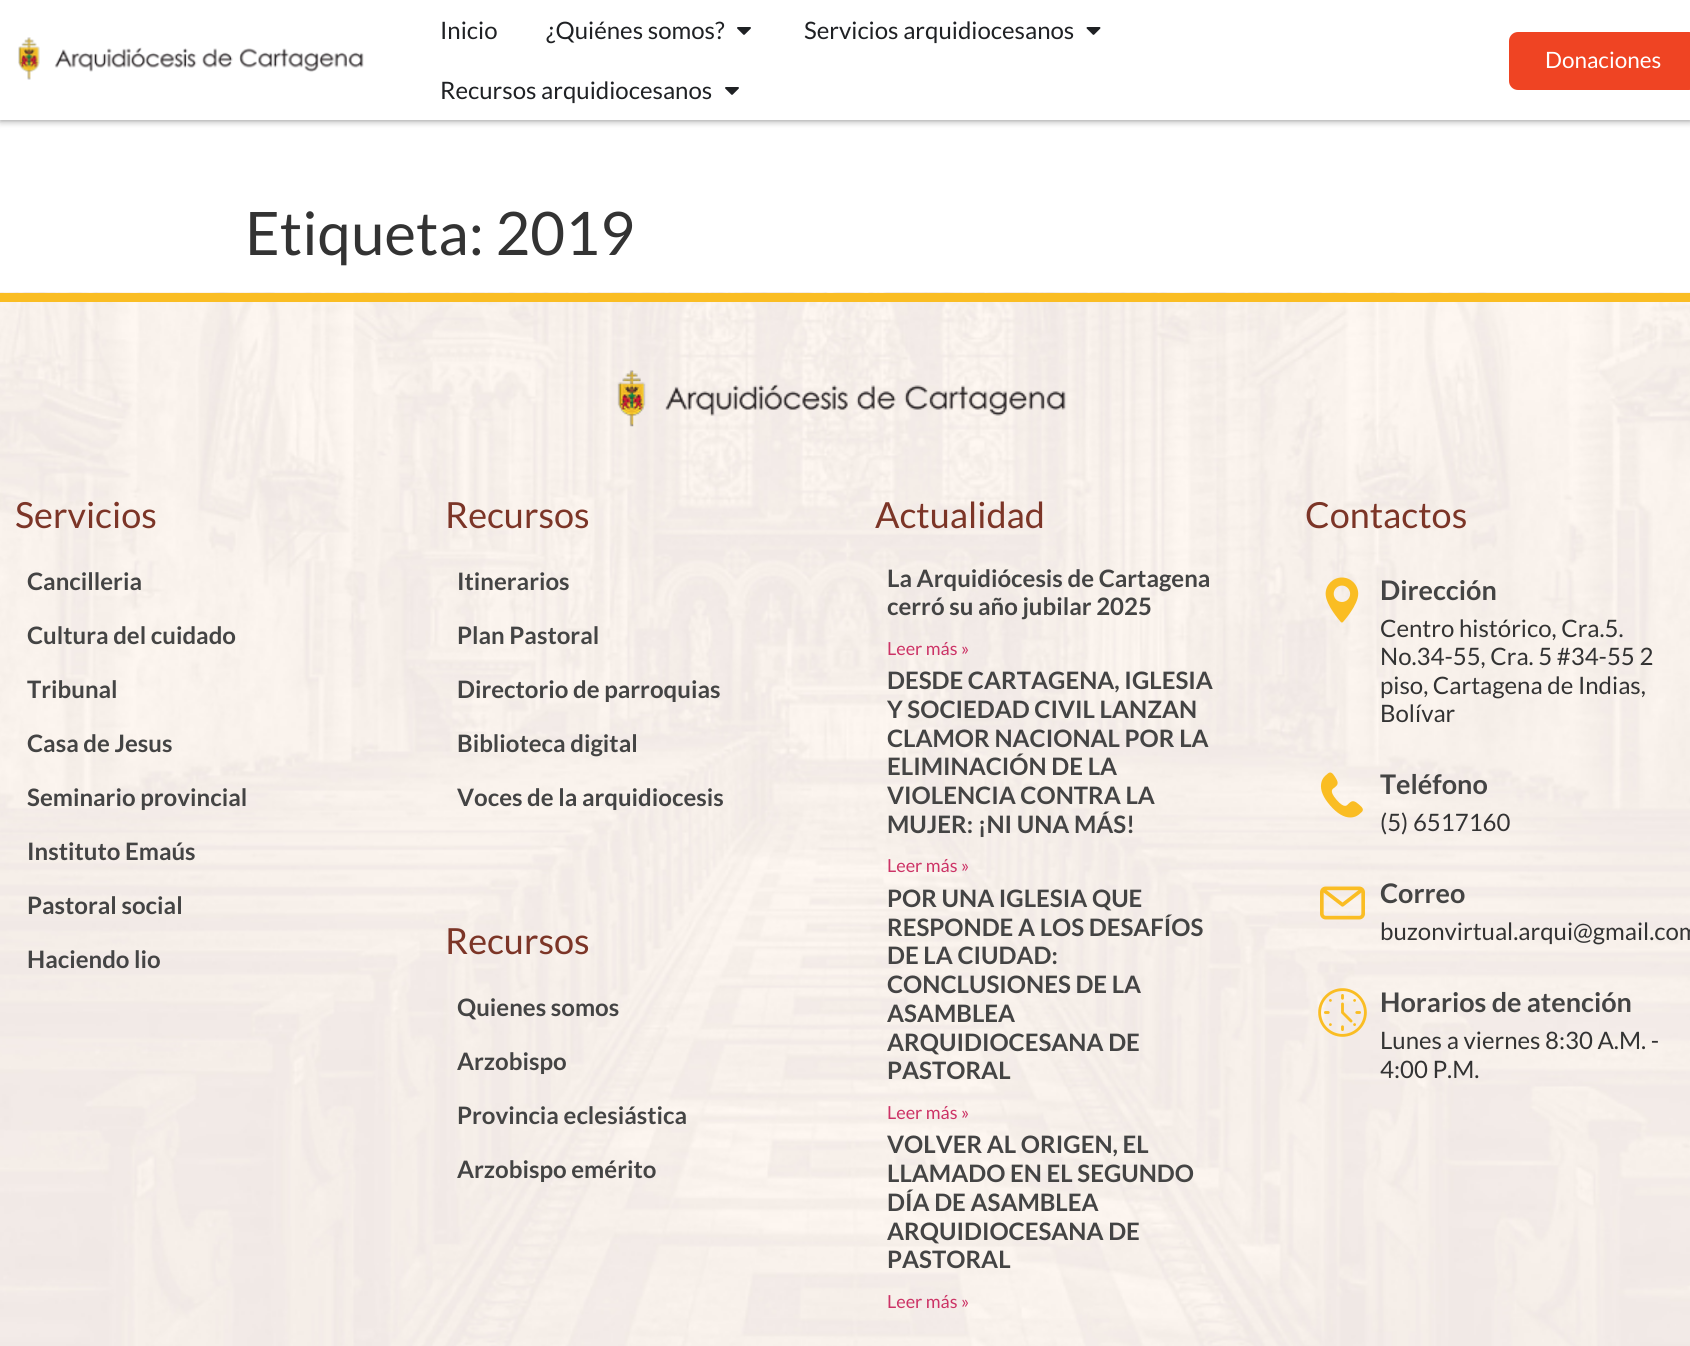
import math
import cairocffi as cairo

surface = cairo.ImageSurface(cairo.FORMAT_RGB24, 1690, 1346)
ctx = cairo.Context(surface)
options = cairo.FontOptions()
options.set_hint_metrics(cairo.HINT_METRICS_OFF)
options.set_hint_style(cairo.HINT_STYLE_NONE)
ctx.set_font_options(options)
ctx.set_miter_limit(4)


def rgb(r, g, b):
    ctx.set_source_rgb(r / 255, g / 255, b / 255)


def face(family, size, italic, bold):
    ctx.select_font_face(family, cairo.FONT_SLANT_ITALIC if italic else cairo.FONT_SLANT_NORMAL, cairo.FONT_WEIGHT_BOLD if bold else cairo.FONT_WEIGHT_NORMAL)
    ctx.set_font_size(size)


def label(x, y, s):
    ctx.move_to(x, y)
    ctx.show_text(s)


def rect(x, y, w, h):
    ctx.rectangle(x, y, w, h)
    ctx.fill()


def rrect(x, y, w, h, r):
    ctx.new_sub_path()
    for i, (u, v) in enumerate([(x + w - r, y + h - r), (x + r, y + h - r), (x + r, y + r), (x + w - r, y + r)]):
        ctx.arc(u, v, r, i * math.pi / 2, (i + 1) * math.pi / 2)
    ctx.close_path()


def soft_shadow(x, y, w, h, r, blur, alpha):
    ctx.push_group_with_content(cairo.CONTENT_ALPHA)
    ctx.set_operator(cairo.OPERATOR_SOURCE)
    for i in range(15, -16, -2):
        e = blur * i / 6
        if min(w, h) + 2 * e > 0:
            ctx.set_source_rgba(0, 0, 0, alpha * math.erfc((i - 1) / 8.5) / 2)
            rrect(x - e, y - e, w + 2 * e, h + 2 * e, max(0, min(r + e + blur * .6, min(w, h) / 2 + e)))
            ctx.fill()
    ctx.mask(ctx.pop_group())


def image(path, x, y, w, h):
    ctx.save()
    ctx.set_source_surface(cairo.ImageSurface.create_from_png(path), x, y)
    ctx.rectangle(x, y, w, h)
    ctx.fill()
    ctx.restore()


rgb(255, 255, 255)
ctx.paint()
rgb(0, 0, 0)
soft_shadow(0, 0, 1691, 120, 0, 4, 0.5)
rgb(255, 255, 255)
rect(0, 0, 1690, 120)
image('image0.png', 18, 37, 346, 43)
face('Lato', 24, 0, 0)
rgb(31, 33, 36)
label(440, 39, 'Inicio')
label(546, 39, '¿Quiénes somos?')
image('image1.png', 737, 27, 14, 8)
label(804, 39, 'Servicios arquidiocesanos')
image('image2.png', 1086, 27, 15, 8)
label(440, 99, 'Recursos arquidiocesanos')
image('image1.png', 725, 87, 14, 8)
rgb(239, 68, 35)
rrect(1509, 32, 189, 58, 9)
ctx.fill()
face('Lato', 22.5, 0, 0)
rgb(255, 255, 255)
label(1545, 68, 'Donaciones')
face('Lato', 60, 0, 0)
rgb(51, 51, 51)
label(245, 255, 'Etiqueta: 2019')
image('image3.png', 0, 292, 1690, 1054)
rgb(250, 189, 35)
rect(0, 293, 1690, 9)
image('image4.png', 617, 370, 449, 57)
face('Lato', 36, 0, 0)
rgb(124, 53, 39)
label(15, 528, 'Servicios')
face('Lato', 24, 0, 1)
rgb(68, 68, 68)
label(27, 590, 'Cancilleria')
label(27, 644, 'Cultura del cuidado')
label(27, 698, 'Tribunal')
label(27, 752, 'Casa de Jesus')
label(27, 806, 'Seminario provincial')
label(27, 860, 'Instituto Emaús')
label(27, 914, 'Pastoral social')
label(27, 968, 'Haciendo lio')
face('Lato', 36, 0, 0)
rgb(124, 53, 39)
label(445, 528, 'Recursos')
face('Lato', 24, 0, 1)
rgb(68, 68, 68)
label(457, 590, 'Itinerarios')
label(457, 644, 'Plan Pastoral')
label(457, 698, 'Directorio de parroquias')
label(457, 752, 'Biblioteca digital')
label(457, 806, 'Voces de la arquidiocesis')
face('Lato', 36, 0, 0)
rgb(124, 53, 39)
label(445, 954, 'Recursos')
face('Lato', 24, 0, 1)
rgb(68, 68, 68)
label(457, 1016, 'Quienes somos')
label(457, 1070, 'Arzobispo')
label(457, 1124, 'Provincia eclesiástica')
label(457, 1178, 'Arzobispo emérito')
face('Lato', 36, 0, 0)
rgb(124, 53, 39)
label(875, 528, 'Actualidad')
face('Lato', 24, 0, 1)
rgb(68, 68, 68)
label(887, 587, 'La Arquidiócesis de Cartagena')
label(887, 615, 'cerró su año jubilar 2025')
face('Lato', 18, 0, 0)
rgb(204, 51, 102)
label(887, 655, 'Leer más »')
face('Lato', 24, 0, 1)
rgb(68, 68, 68)
label(887, 689, 'DESDE CARTAGENA, IGLESIA')
label(887, 718, 'Y SOCIEDAD CIVIL LANZAN')
label(887, 747, 'CLAMOR NACIONAL POR LA')
label(887, 775, 'ELIMINACIÓN DE LA')
label(887, 804, 'VIOLENCIA CONTRA LA')
label(887, 833, 'MUJER: ¡NI UNA MÁS!')
face('Lato', 18, 0, 0)
rgb(204, 51, 102)
label(887, 872, 'Leer más »')
face('Lato', 24, 0, 1)
rgb(68, 68, 68)
label(887, 907, 'POR UNA IGLESIA QUE')
label(887, 936, 'RESPONDE A LOS DESAFÍOS')
label(887, 964, 'DE LA CIUDAD:')
label(887, 993, 'CONCLUSIONES DE LA')
label(887, 1022, 'ASAMBLEA')
label(887, 1051, 'ARQUIDIOCESANA DE')
label(887, 1079, 'PASTORAL')
face('Lato', 18, 0, 0)
rgb(204, 51, 102)
label(887, 1119, 'Leer más »')
face('Lato', 24, 0, 1)
rgb(68, 68, 68)
label(887, 1153, 'VOLVER AL ORIGEN, EL')
label(887, 1182, 'LLAMADO EN EL SEGUNDO')
label(887, 1211, 'DÍA DE ASAMBLEA')
label(887, 1240, 'ARQUIDIOCESANA DE')
label(887, 1268, 'PASTORAL')
face('Lato', 18, 0, 0)
rgb(204, 51, 102)
label(887, 1308, 'Leer más »')
face('Lato', 36, 0, 0)
rgb(124, 53, 39)
label(1305, 528, 'Contactos')
image('image5.png', 1325, 577, 34, 46)
face('Lato', 27, 0, 1)
rgb(68, 68, 68)
label(1380, 600, 'Dirección')
face('Lato', 24, 0, 0)
rgb(51, 51, 51)
label(1380, 637, 'Centro histórico, Cra.5.')
label(1380, 665, 'No.34-55, Cra. 5 #34-55 2')
label(1380, 694, 'piso, Cartagena de Indias,')
label(1380, 722, 'Bolívar')
image('image6.png', 1320, 772, 43, 46)
face('Lato', 27, 0, 1)
rgb(68, 68, 68)
label(1380, 794, 'Teléfono')
face('Lato', 24, 0, 0)
rgb(51, 51, 51)
label(1380, 831, '(5) 6517160')
image('image7.png', 1320, 886, 45, 34)
face('Lato', 27, 0, 1)
rgb(68, 68, 68)
label(1380, 903, 'Correo')
face('Lato', 24, 0, 0)
rgb(51, 51, 51)
label(1380, 940, 'buzonvirtual.arqui@gmail.com')
image('image8.png', 1318, 988, 49, 49)
face('Lato', 27, 0, 1)
rgb(68, 68, 68)
label(1380, 1012, 'Horarios de atención')
face('Lato', 24, 0, 0)
rgb(51, 51, 51)
label(1380, 1049, 'Lunes a viernes 8:30 A.M. -')
label(1380, 1078, '4:00 P.M.')
surface.write_to_png('render.png')
